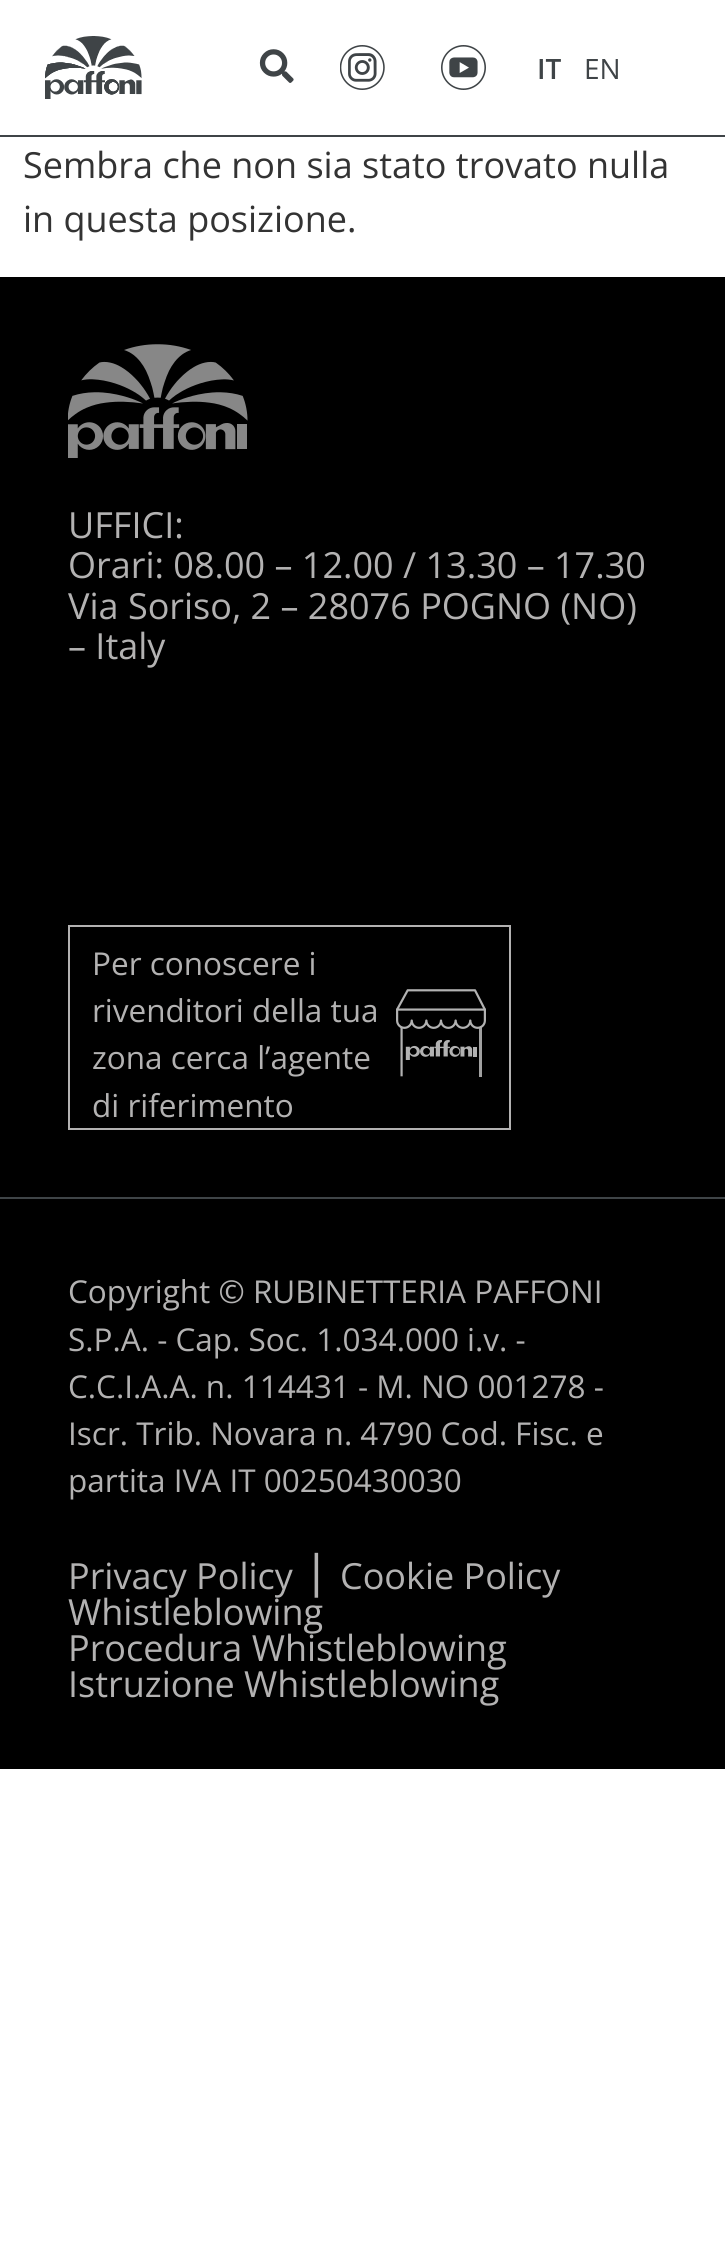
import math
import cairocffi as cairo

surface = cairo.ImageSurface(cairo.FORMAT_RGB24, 725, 2245)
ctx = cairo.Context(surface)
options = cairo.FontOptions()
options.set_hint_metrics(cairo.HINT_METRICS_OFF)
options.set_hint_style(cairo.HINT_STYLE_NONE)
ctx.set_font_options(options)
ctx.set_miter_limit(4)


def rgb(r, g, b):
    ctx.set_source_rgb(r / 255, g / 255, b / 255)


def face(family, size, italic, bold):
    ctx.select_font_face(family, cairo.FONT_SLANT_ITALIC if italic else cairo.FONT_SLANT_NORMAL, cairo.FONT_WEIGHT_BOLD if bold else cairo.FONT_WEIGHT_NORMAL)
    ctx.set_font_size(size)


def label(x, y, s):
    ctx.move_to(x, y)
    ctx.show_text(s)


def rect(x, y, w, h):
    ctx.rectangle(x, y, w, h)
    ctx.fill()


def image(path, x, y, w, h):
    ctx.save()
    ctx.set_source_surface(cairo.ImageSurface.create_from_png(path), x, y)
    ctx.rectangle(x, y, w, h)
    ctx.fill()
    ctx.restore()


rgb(255, 255, 255)
ctx.paint()
rgb(63, 68, 71)
rect(0, 135, 725, 2)
image('image0.png', 45, 36, 97, 63)
image('image1.png', 259, 49, 35, 34)
image('image2.png', 340, 45, 45, 45)
image('image3.png', 441, 45, 45, 45)
face('Open Sans SemiBold', 28, 0, 0)
label(537, 79, 'IT')
face('Open Sans', 28, 0, 0)
label(584, 79, 'EN')
face('Open Sans', 36, 0, 0)
rgb(51, 51, 51)
label(23, 178, 'Sembra che non sia stato trovato nulla')
label(23, 232, 'in questa posizione.')
rgb(0, 0, 0)
rect(0, 277, 725, 920)
image('image4.png', 68, 344, 180, 114)
rgb(179, 178, 178)
label(68, 538, 'UFFICI:')
label(68, 578, 'Orari: 08.00 – 12.00 / 13.30 – 17.30')
label(68, 619, 'Via Soriso, 2 – 28076 POGNO (NO)')
label(68, 659, '– Italy')
ctx.rectangle(69, 926, 441, 203)
ctx.stroke()
face('Open Sans', 31.5, 0, 0)
label(92, 975, 'Per conoscere i')
label(92, 1022, 'rivenditori della tua')
label(92, 1069, 'zona cerca l’agente')
label(92, 1117, 'di riferimento')
image('image5.png', 396, 989, 90, 88)
rgb(0, 0, 0)
rect(0, 1199, 725, 570)
rgb(63, 68, 71)
rect(0, 1197, 725, 2)
rgb(179, 178, 178)
label(68, 1303, 'Copyright © RUBINETTERIA PAFFONI')
label(68, 1351, 'S.P.A. - Cap. Soc. 1.034.000 i.v. -')
label(68, 1398, 'C.C.I.A.A. n. 114431 - M. NO 001278 -')
label(68, 1445, 'Iscr. Trib. Novara n. 4790 Cod. Fisc. e')
label(68, 1492, 'partita IVA IT 00250430030')
face('Open Sans', 36, 0, 0)
label(68, 1589, 'Privacy Policy')
face('Open Sans Medium', 45, 0, 0)
label(304, 1587, '|')
face('Open Sans', 36, 0, 0)
label(340, 1589, 'Cookie Policy')
label(68, 1625, 'Whistleblowing')
label(68, 1661, 'Procedura Whistleblowing')
label(68, 1697, 'Istruzione Whistleblowing')
surface.write_to_png('render.png')
